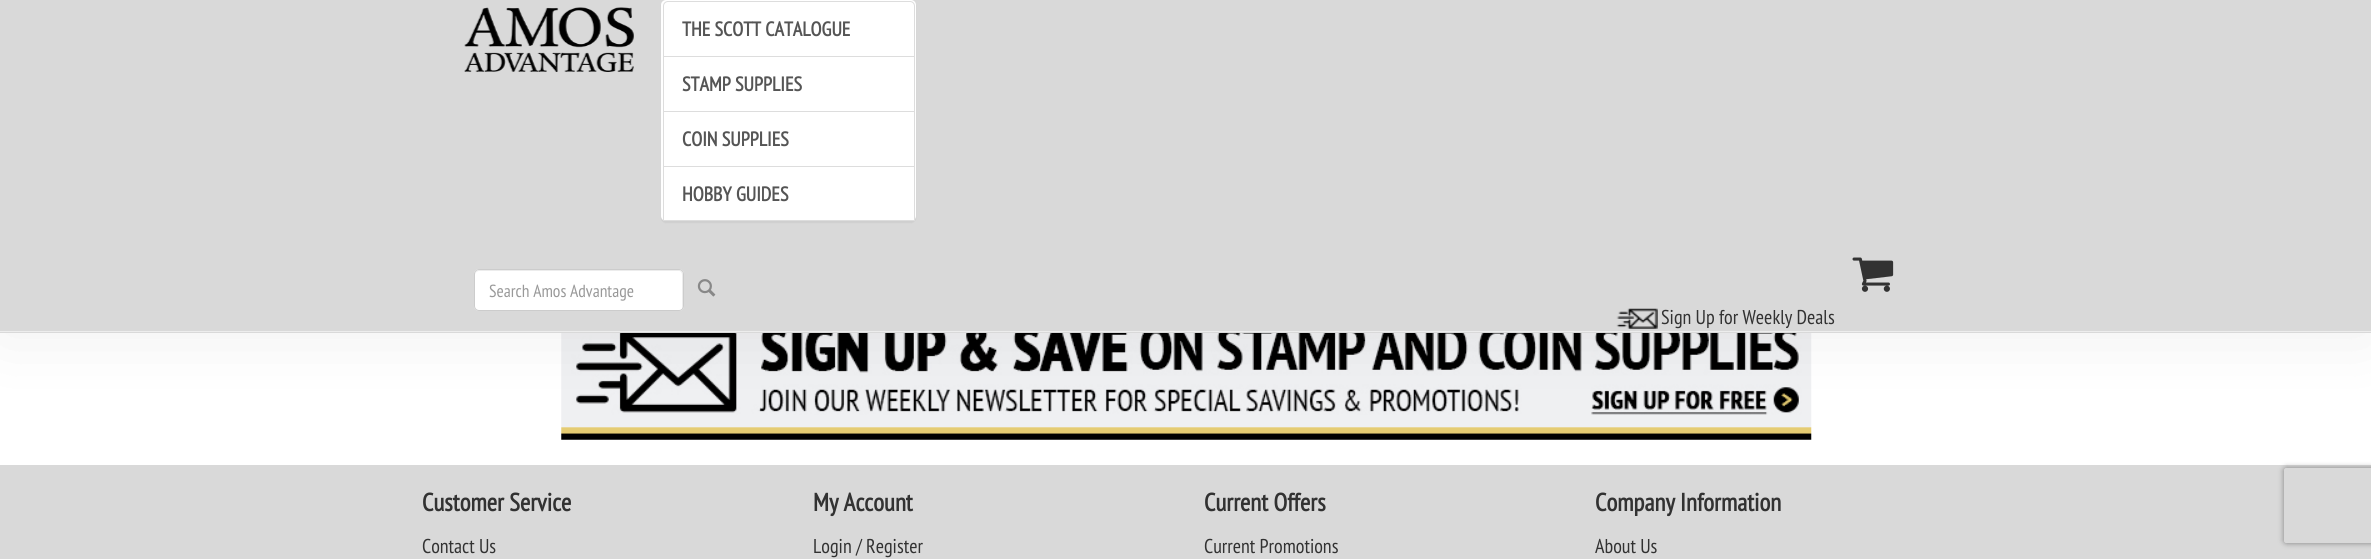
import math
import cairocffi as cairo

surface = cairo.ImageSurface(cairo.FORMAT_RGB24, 2371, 559)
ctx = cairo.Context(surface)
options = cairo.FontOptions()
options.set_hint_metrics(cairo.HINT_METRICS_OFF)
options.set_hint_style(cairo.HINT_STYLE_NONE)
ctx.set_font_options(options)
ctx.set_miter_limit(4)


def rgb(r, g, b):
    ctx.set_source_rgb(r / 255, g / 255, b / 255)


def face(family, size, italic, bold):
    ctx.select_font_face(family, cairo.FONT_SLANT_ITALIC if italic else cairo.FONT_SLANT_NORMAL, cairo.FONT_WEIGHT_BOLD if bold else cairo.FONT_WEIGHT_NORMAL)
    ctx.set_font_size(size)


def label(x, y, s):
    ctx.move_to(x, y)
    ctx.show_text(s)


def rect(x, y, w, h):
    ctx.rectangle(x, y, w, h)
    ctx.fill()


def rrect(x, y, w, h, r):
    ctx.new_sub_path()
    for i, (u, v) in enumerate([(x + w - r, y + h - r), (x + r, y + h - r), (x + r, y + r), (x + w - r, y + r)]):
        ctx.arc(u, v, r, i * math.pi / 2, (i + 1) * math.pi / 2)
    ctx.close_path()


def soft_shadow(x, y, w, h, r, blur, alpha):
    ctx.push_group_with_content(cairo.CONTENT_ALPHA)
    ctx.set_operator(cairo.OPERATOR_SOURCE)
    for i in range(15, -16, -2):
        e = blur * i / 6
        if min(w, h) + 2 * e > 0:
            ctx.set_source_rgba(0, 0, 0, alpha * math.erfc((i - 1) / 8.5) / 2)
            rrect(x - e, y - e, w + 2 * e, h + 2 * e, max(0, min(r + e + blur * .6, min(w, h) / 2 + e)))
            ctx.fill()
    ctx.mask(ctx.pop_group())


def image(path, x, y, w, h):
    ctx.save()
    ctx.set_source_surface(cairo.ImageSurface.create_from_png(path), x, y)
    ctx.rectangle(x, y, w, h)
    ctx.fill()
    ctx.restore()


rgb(255, 255, 255)
ctx.paint()
image('image4.png', 561, 333, 1251, 107)
rgb(0, 0, 0)
soft_shadow(0, 0, 2371, 333, 0, 37.5, 0.07)
rgb(217, 217, 217)
rect(0, 0, 2371, 333)
rgb(237, 237, 237)
rect(0, 331, 2371, 1)
image('image0.png', 464, 7, 170, 65)
rgb(0, 0, 0)
soft_shadow(661, 1, 255, 222, 5, 0.5, 0.05)
rgb(255, 255, 255)
rrect(661, 0, 255, 221, 5)
ctx.fill()
ctx.new_path()
ctx.move_to(668, 1.5)
ctx.line_to(910, 1.5)
ctx.curve_to(912.5, 1.5, 914.5, 3.5, 914.5, 6)
ctx.line_to(914.5, 57.5)
ctx.line_to(663.5, 57.5)
ctx.line_to(663.5, 6)
ctx.curve_to(663.5, 3.5, 665.5, 1.5, 668, 1.5)
ctx.close_path()
rgb(221, 221, 221)
ctx.set_line_width(1)
ctx.stroke()
face('PT Sans Narrow', 20, 0, 1)
rgb(85, 85, 85)
label(682, 36, 'THE SCOTT CATALOGUE')
rgb(255, 255, 255)
rect(664, 57, 250, 1)
ctx.rectangle(663.5, 56.5, 251, 56)
rgb(221, 221, 221)
ctx.stroke()
rgb(85, 85, 85)
label(682, 91, 'STAMP SUPPLIES')
rgb(255, 255, 255)
rect(664, 112, 250, 1)
ctx.rectangle(663.5, 111.5, 251, 56)
rgb(221, 221, 221)
ctx.stroke()
rgb(85, 85, 85)
label(682, 146, 'COIN SUPPLIES')
rgb(255, 255, 255)
rect(664, 167, 250, 1)
ctx.rectangle(663.5, 166.5, 251, 54)
rgb(221, 221, 221)
ctx.stroke()
rgb(85, 85, 85)
label(682, 201, 'HOBBY GUIDES')
rgb(255, 255, 255)
rrect(474, 269, 210, 42, 5)
ctx.fill()
rgb(236, 236, 236)
ctx.new_path()
ctx.move_to(479, 271)
ctx.line_to(679, 271)
ctx.curve_to(681, 271, 682, 273, 682, 275)
ctx.line_to(682, 309)
ctx.curve_to(683, 308, 683, 307, 683, 306)
ctx.line_to(683, 274)
ctx.curve_to(683, 272, 681, 270, 679, 270)
ctx.line_to(479, 270)
ctx.curve_to(477, 270, 475, 272, 475, 274)
ctx.line_to(475, 275)
ctx.curve_to(475, 273, 477, 271, 479, 271)
ctx.close_path()
ctx.fill()
rrect(474.5, 269.5, 209, 41, 4.5)
rgb(204, 204, 204)
ctx.stroke()
face('PT Sans Narrow', 17.5, 0, 0)
rgb(153, 153, 153)
label(489, 297, 'Search Amos Advantage')
image('image1.png', 697, 279, 19, 18)
image('image2.png', 1852, 257, 42, 35)
image('image3.png', 1616, 308, 42, 21)
face('PT Sans Narrow', 20, 0, 0)
rgb(50, 50, 50)
label(1661, 324, 'Sign Up for Weekly Deals')
rgb(217, 217, 217)
rect(0, 465, 2371, 94)
face('PT Sans Narrow', 25, 0, 1)
rgb(50, 50, 50)
label(422, 511, 'Customer Service')
face('PT Sans Narrow', 20, 0, 0)
label(422, 553, 'Contact Us')
face('PT Sans Narrow', 25, 0, 1)
label(813, 511, 'My Account')
face('PT Sans Narrow', 20, 0, 0)
label(813, 553, 'Login / Register')
face('PT Sans Narrow', 25, 0, 1)
label(1204, 511, 'Current Offers')
face('PT Sans Narrow', 20, 0, 0)
label(1204, 553, 'Current Promotions')
face('PT Sans Narrow', 25, 0, 1)
label(1595, 511, 'Company Information')
face('PT Sans Narrow', 20, 0, 0)
label(1595, 553, 'About Us')
ctx.save()
ctx.set_fill_rule(cairo.FILL_RULE_EVEN_ODD)
ctx.new_path()
ctx.move_to(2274, 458)
ctx.line_to(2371, 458)
ctx.line_to(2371, 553)
ctx.line_to(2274, 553)
ctx.close_path()
ctx.move_to(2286.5, 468)
ctx.line_to(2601.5, 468)
ctx.curve_to(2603, 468, 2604, 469, 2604, 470.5)
ctx.line_to(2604, 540.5)
ctx.curve_to(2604, 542, 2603, 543, 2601.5, 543)
ctx.line_to(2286.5, 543)
ctx.curve_to(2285, 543, 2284, 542, 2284, 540.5)
ctx.line_to(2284, 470.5)
ctx.curve_to(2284, 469, 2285, 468, 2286.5, 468)
ctx.close_path()
ctx.clip()
rgb(128, 128, 128)
soft_shadow(2284, 468, 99, 75, 2.5, 3, 1)
ctx.restore()
surface.write_to_png('render.png')
